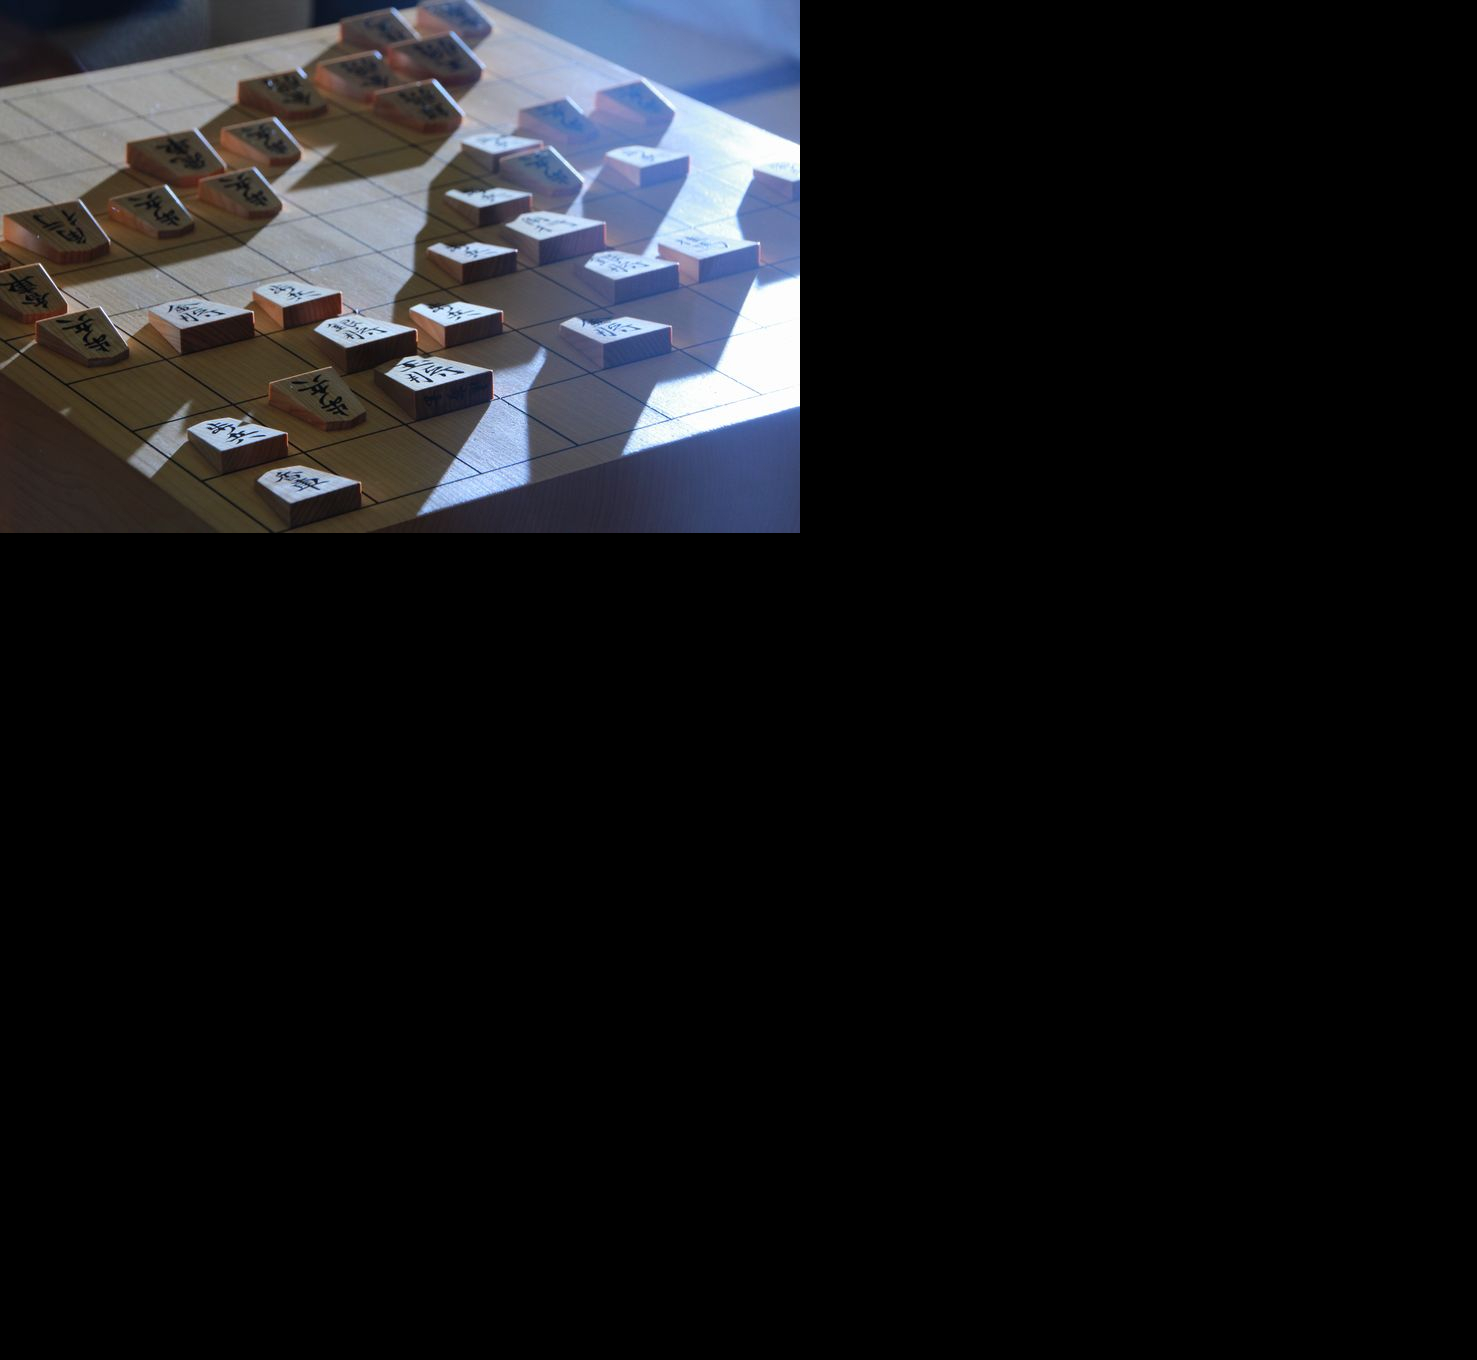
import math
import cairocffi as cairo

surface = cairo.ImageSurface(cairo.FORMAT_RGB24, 1477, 1360)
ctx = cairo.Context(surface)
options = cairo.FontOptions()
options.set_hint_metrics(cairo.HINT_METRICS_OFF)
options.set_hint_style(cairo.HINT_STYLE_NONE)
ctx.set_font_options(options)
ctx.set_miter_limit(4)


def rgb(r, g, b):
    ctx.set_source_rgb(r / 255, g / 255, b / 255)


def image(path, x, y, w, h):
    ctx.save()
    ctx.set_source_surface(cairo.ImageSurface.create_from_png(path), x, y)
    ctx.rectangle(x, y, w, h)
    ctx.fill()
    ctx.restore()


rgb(0, 0, 0)
ctx.paint()
image('image0.png', 0, 0, 800, 533)
surface.write_to_png('render.png')
